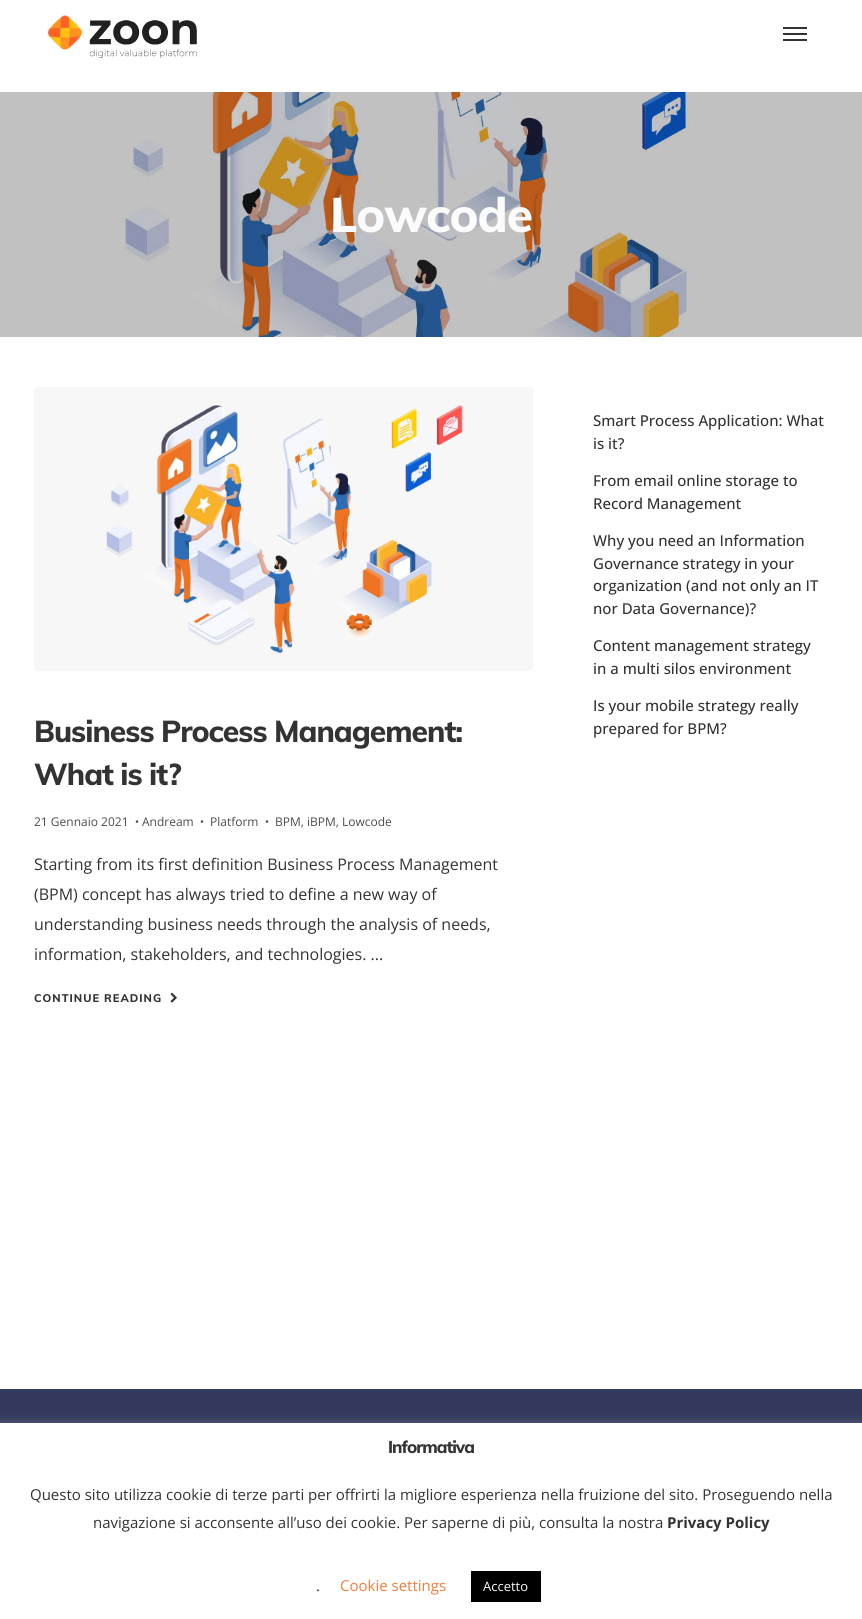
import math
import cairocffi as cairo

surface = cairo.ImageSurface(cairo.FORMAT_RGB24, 862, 1619)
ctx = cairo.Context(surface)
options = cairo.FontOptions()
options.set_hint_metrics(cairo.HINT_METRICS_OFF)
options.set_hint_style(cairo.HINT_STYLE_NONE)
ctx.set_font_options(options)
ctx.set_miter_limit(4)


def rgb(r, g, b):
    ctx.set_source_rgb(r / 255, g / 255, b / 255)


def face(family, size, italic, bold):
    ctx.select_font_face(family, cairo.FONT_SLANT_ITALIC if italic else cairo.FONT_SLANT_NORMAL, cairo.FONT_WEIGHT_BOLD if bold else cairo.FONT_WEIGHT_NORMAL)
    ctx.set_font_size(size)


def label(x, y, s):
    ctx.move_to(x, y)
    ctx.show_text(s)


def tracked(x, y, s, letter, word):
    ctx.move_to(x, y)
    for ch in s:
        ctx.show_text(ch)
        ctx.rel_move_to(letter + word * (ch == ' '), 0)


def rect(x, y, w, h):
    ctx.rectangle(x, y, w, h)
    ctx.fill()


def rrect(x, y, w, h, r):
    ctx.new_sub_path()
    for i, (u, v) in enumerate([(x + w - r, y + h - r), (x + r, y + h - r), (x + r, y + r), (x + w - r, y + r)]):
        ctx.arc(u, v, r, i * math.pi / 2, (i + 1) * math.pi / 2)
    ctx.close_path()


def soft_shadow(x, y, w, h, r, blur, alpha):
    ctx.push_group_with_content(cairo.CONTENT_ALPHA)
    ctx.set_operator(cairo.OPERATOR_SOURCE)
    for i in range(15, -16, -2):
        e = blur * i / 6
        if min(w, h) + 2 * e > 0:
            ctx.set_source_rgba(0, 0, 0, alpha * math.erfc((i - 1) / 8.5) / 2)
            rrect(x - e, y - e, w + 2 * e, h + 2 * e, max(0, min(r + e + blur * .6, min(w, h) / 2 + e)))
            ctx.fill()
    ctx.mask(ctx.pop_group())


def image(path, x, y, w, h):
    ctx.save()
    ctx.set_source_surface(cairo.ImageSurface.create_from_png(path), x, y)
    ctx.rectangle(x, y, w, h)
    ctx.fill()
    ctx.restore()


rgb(255, 255, 255)
ctx.paint()
image('image0.png', 48, 15, 149, 43)
rgb(51, 51, 51)
rect(783, 27, 24, 2)
rect(783, 33, 24, 2)
rect(783, 39, 24, 2)
image('image1.png', 0, 92, 862, 245)
face('Muli ExtraBold', 48, 0, 0)
rgb(252, 251, 251)
tracked(330, 232, 'Lowcode', -1, 0)
face('Open Sans Medium', 15, 0, 0)
rgb(51, 51, 51)
label(593, 426, 'Smart Process Application: What')
label(593, 449, 'is it?')
label(593, 486, 'From email online storage to')
label(593, 509, 'Record Management')
label(593, 546, 'Why you need an Information')
label(593, 569, 'Governance strategy in your')
label(593, 591, 'organization (and not only an IT')
label(593, 614, 'nor Data Governance)?')
label(593, 651, 'Content management strategy')
label(593, 674, 'in a multi silos environment')
label(593, 711, 'Is your mobile strategy really')
label(593, 734, 'prepared for BPM?')
image('image2.png', 34, 387, 499, 284)
face('Muli ExtraBold', 30, 0, 0)
tracked(34, 742, 'Business Process Management:', -1, 0)
tracked(34, 785, 'What is it?', -1, 0)
face('Open Sans', 12, 0, 0)
rgb(75, 75, 75)
label(34, 826, '21 Gennaio 2021')
face('Roboto', 12, 0, 0)
label(135, 826, '•')
face('Open Sans', 12, 0, 0)
label(142, 826, 'Andream')
face('Roboto', 12, 0, 0)
label(200, 826, '•')
face('Open Sans', 12, 0, 0)
label(210, 826, 'Platform')
face('Roboto', 12, 0, 0)
label(265, 826, '•')
face('Open Sans', 12, 0, 0)
label(275, 826, 'BPM, iBPM, Lowcode')
face('Open Sans', 16, 0, 0)
rgb(51, 51, 51)
label(34, 870, 'Starting from its first definition Business Process Management')
label(34, 900, '(BPM) concept has always tried to define a new way of')
label(34, 930, 'understanding business needs through the analysis of needs,')
label(34, 960, 'information, stakeholders, and technologies. ...')
face('Muli ExtraBold', 11, 0, 0)
tracked(34, 1002, 'CONTINUE READING', 1, 0)
image('image3.png', 170, 992, 7, 11)
rgb(51, 57, 93)
rect(0, 1389, 862, 34)
rgb(172, 171, 171)
soft_shadow(0, 1422, 862, 196, 0, 5, 0.3)
rgb(255, 255, 255)
rect(0, 1423, 862, 196)
face('Muli ExtraBold', 17, 0, 0)
rgb(51, 51, 51)
tracked(388, 1453, 'Informativa', -1, 0)
face('Open Sans', 15, 0, 0)
label(30, 1500, 'Questo sito utilizza cookie di terze parti per offrirti la migliore esperienza nella fruizione del sito. Proseguendo nella')
label(93, 1528, 'navigazione si acconsente all’uso dei cookie. Per saperne di più, consulta la nostra')
face('Open Sans', 15, 0, 1)
label(667, 1528, 'Privacy Policy')
face('Open Sans', 15, 0, 0)
label(316, 1591, '.')
rgb(244, 125, 56)
label(340, 1591, 'Cookie settings')
rgb(0, 0, 0)
rect(471, 1571, 70, 31)
face('Open Sans', 13, 0, 0)
rgb(252, 251, 251)
label(483, 1591, 'Accetto')
surface.write_to_png('render.png')
